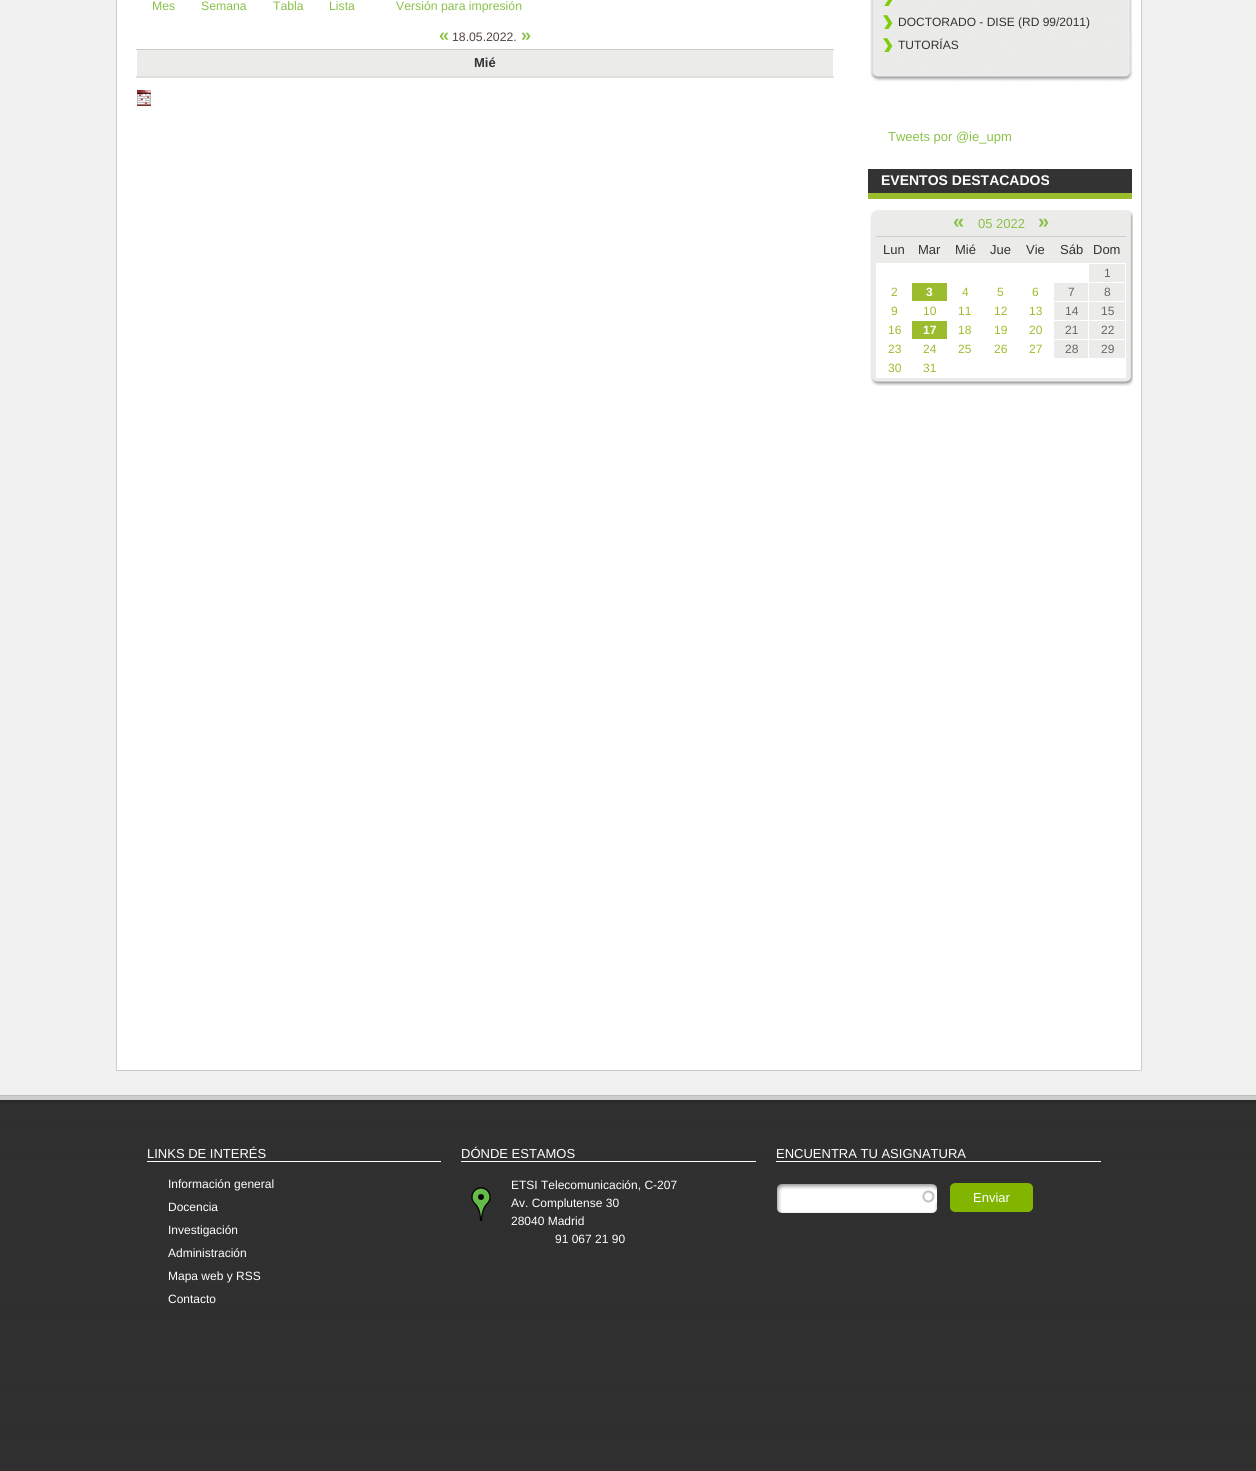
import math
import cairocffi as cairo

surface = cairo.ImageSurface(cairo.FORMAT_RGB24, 1256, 1471)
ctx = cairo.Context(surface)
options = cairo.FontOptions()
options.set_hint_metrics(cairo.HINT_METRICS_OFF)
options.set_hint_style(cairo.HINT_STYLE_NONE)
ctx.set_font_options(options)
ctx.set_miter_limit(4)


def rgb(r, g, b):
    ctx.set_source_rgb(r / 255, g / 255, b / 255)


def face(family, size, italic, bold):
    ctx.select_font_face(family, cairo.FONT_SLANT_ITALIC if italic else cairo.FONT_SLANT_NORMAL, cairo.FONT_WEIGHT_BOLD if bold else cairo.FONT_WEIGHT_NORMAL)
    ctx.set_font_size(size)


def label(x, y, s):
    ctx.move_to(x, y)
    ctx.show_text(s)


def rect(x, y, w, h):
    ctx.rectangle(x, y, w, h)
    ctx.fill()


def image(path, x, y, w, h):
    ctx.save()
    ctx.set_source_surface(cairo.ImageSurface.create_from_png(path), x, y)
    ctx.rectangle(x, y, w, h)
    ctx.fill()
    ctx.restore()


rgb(241, 241, 241)
ctx.paint()
rgb(255, 255, 255)
ctx.rectangle(116.5, -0.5, 1025, 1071)
ctx.fill_preserve()
rgb(204, 204, 204)
ctx.set_line_width(1)
ctx.stroke()
face('Liberation Sans', 12.25, 0, 0)
rgb(138, 193, 73)
label(152, 10, 'Mes')
label(201, 10, 'Semana')
label(273, 10, 'Tabla')
label(329, 10, 'Lista')
label(396, 10, 'Versión para impresión')
rgb(204, 204, 204)
rect(136, 49, 698, 1)
face('Liberation Sans', 18, 0, 1)
rgb(138, 193, 73)
label(439, 41, '«')
face('Liberation Sans', 12.25, 0, 0)
rgb(81, 68, 63)
label(452, 41, '18.05.2022.')
face('Liberation Sans', 18, 0, 1)
rgb(138, 193, 73)
label(521, 41, '»')
rgb(235, 235, 233)
rect(137, 50, 696, 26)
face('Liberation Sans', 13, 0, 1)
rgb(51, 51, 51)
label(474, 67, 'Mié')
rgb(224, 224, 221)
rect(136, 76, 698, 1)
rect(833, 76, 1, 2)
rect(136, 77, 698, 1)
image('image0.png', 137, 90, 14, 16)
image('image1.png', 870, 0, 262, 14)
image('image2.png', 884, 0, 9, 6)
image('image3.png', 870, 14, 262, 23)
image('image4.png', 883, 15, 10, 14)
face('Liberation Sans', 12, 0, 0)
rgb(51, 51, 51)
label(898, 26, 'DOCTORADO - DISE (RD 99/2011)')
image('image5.png', 870, 37, 263, 45)
image('image6.png', 883, 38, 10, 14)
label(898, 49, 'TUTORÍAS')
face('Liberation Sans', 13, 0, 0)
rgb(138, 193, 73)
label(888, 141, 'Tweets por @ie_upm')
rgb(51, 51, 51)
rect(868, 169, 264, 24)
rgb(155, 189, 45)
rect(868, 193, 264, 6)
face('Liberation Sans', 14, 0, 1)
rgb(255, 255, 255)
label(881, 185, 'EVENTOS DESTACADOS')
image('image7.png', 870, 210, 263, 176)
rgb(204, 204, 204)
rect(876, 236, 250, 1)
face('Liberation Sans', 20, 0, 1)
rgb(138, 193, 73)
label(953, 228, '«')
face('Liberation Sans', 13, 0, 0)
label(978, 228, '05 2022')
face('Liberation Sans', 20, 0, 1)
label(1038, 228, '»')
face('Liberation Sans', 13, 0, 0)
rgb(51, 51, 51)
label(883, 254, 'Lun')
label(918, 254, 'Mar')
label(955, 254, 'Mié')
label(990, 254, 'Jue')
label(1026, 254, 'Vie')
label(1060, 254, 'Sáb')
label(1093, 254, 'Dom')
rgb(255, 255, 255)
rect(877, 263, 212, 19)
rect(1125, 358, 1, 20)
rect(876, 377, 250, 1)
rect(876, 358, 1, 20)
rect(876, 339, 1, 20)
rect(876, 320, 1, 20)
rect(876, 301, 1, 20)
rect(876, 282, 1, 20)
rect(876, 263, 1, 20)
rect(1088, 263, 38, 1)
rect(1088, 282, 38, 1)
rect(1088, 301, 38, 1)
rect(1088, 320, 38, 1)
rect(1088, 339, 38, 1)
rect(1125, 339, 1, 20)
rect(1125, 320, 1, 20)
rect(1125, 301, 1, 20)
rect(1125, 282, 1, 20)
rect(1125, 263, 1, 20)
face('Liberation Sans', 12, 0, 0)
rgb(102, 102, 102)
label(1104, 277, '1')
rgb(255, 255, 255)
rect(877, 282, 177, 76)
rgb(155, 189, 45)
label(891, 296, '2')
rect(912, 283, 35, 18)
face('Liberation Sans', 12, 0, 1)
rgb(255, 255, 255)
label(926, 296, '3')
face('Liberation Sans', 12, 0, 0)
rgb(155, 189, 45)
label(962, 296, '4')
label(997, 296, '5')
label(1032, 296, '6')
rgb(255, 255, 255)
rect(877, 358, 248, 19)
rect(1088, 339, 1, 20)
rect(1053, 339, 36, 1)
rect(1088, 320, 1, 20)
rect(1053, 320, 36, 1)
rect(1088, 301, 1, 20)
rect(1053, 301, 36, 1)
rect(1088, 282, 1, 20)
rect(1053, 282, 36, 1)
rgb(102, 102, 102)
label(1068, 296, '7')
label(1104, 296, '8')
rgb(155, 189, 45)
label(891, 315, '9')
label(923, 315, '10')
label(958, 315, '11')
label(994, 315, '12')
label(1029, 315, '13')
rgb(102, 102, 102)
label(1065, 315, '14')
label(1101, 315, '15')
rgb(155, 189, 45)
label(888, 334, '16')
rect(912, 321, 35, 18)
face('Liberation Sans', 12, 0, 1)
rgb(255, 255, 255)
label(923, 334, '17')
face('Liberation Sans', 12, 0, 0)
rgb(155, 189, 45)
label(958, 334, '18')
label(994, 334, '19')
label(1029, 334, '20')
rgb(102, 102, 102)
label(1065, 334, '21')
label(1101, 334, '22')
rgb(155, 189, 45)
label(888, 353, '23')
label(923, 353, '24')
label(958, 353, '25')
label(994, 353, '26')
label(1029, 353, '27')
rgb(102, 102, 102)
label(1065, 353, '28')
label(1101, 353, '29')
rgb(155, 189, 45)
label(888, 372, '30')
label(923, 372, '31')
image('image8.png', 0, 1096, 1256, 375)
rgb(187, 187, 187)
rect(0, 1095, 1256, 1)
rgb(255, 255, 255)
rect(147, 1161, 294, 1)
face('Liberation Sans', 13, 0, 0)
label(147, 1158, 'LINKS DE INTERÉS')
face('Liberation Sans', 12, 0, 0)
label(168, 1188, 'Información general')
label(168, 1211, 'Docencia')
label(168, 1234, 'Investigación')
label(168, 1257, 'Administración')
label(168, 1280, 'Mapa web y RSS')
label(168, 1303, 'Contacto')
rect(461, 1161, 295, 1)
face('Liberation Sans', 13, 0, 0)
label(461, 1158, 'DÓNDE ESTAMOS')
face('Liberation Sans', 12, 0, 0)
label(511, 1189, 'ETSI Telecomunicación, C-207')
image('image9.png', 471, 1187, 20, 34)
label(511, 1207, 'Av. Complutense 30')
label(511, 1225, '28040 Madrid')
label(555, 1243, '91 067 21 90')
rect(776, 1161, 325, 1)
face('Liberation Sans', 13, 0, 0)
label(776, 1158, 'ENCUENTRA TU ASIGNATURA')
image('image10.png', 777, 1184, 160, 29)
image('image11.png', 922, 1190, 15, 13)
image('image12.png', 950, 1183, 83, 29)
label(973, 1202, 'Enviar')
surface.write_to_png('render.png')
